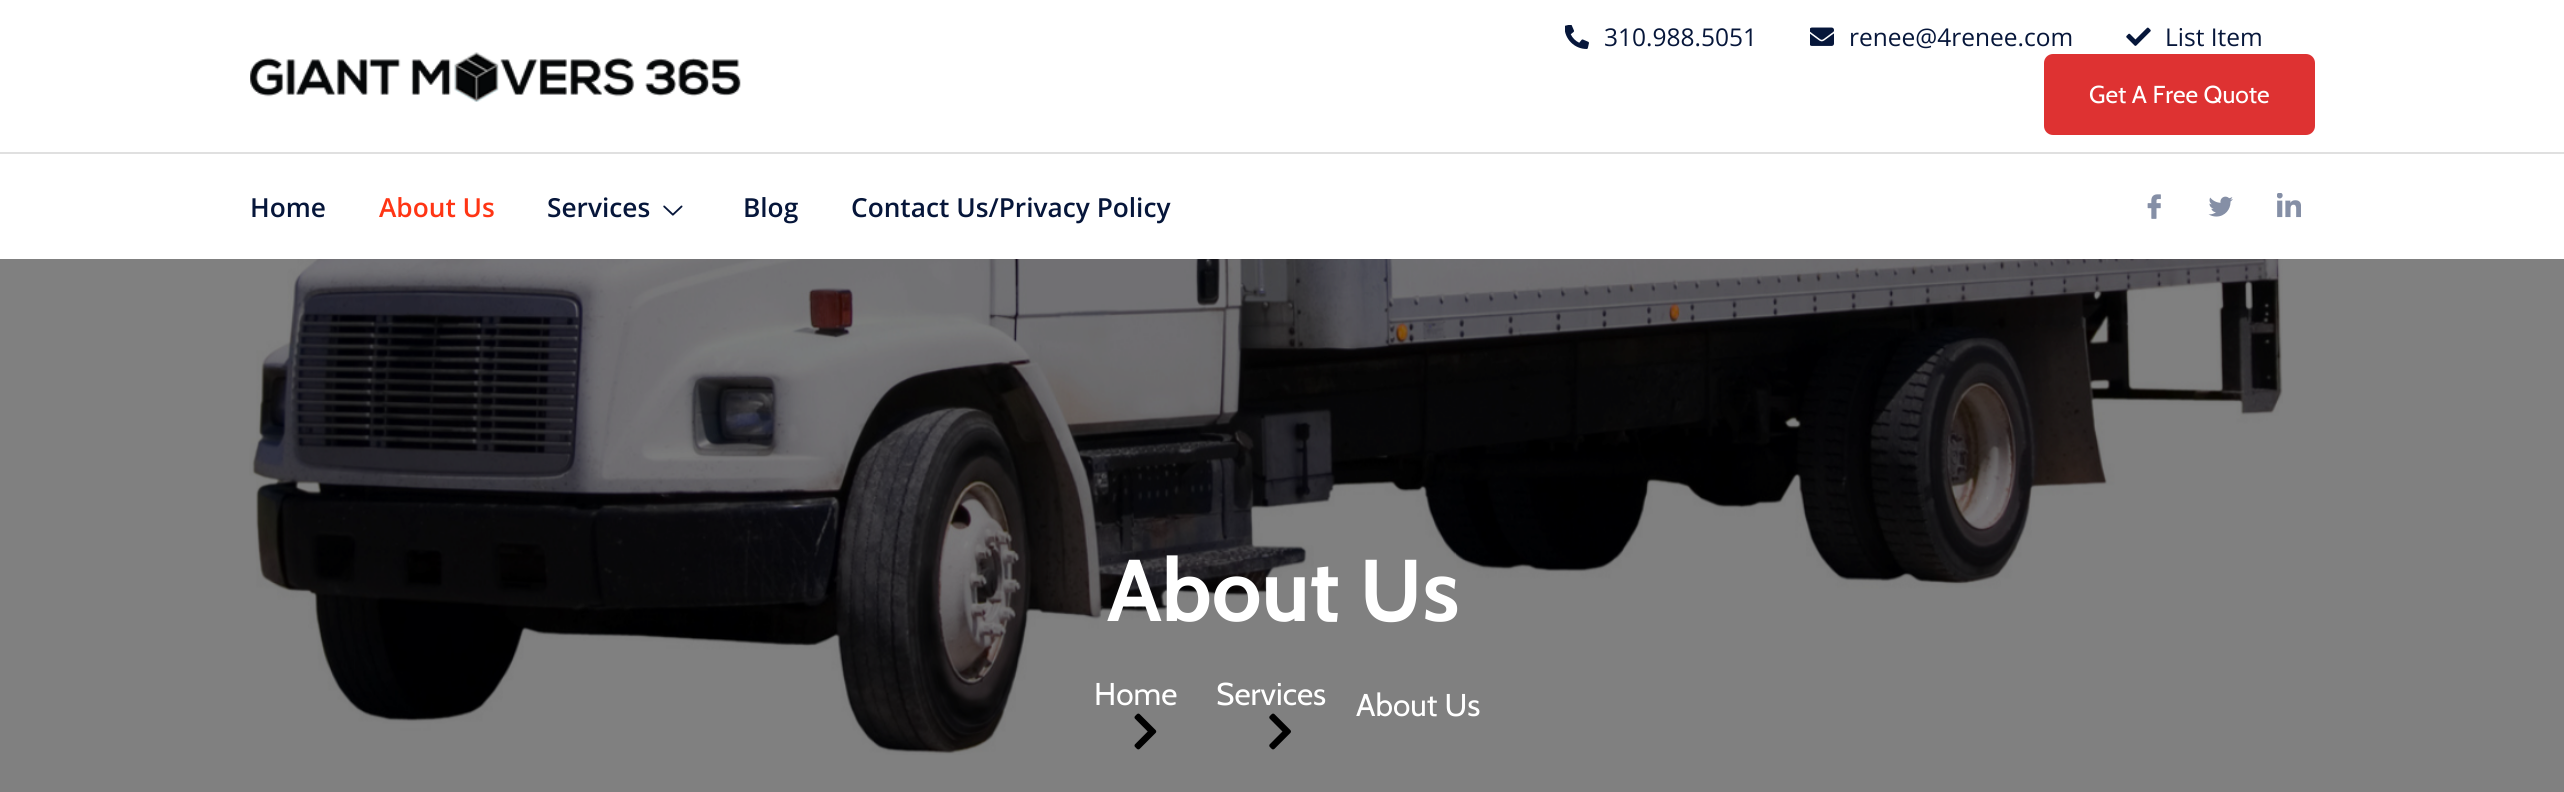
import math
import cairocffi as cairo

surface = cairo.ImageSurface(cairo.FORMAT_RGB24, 2564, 792)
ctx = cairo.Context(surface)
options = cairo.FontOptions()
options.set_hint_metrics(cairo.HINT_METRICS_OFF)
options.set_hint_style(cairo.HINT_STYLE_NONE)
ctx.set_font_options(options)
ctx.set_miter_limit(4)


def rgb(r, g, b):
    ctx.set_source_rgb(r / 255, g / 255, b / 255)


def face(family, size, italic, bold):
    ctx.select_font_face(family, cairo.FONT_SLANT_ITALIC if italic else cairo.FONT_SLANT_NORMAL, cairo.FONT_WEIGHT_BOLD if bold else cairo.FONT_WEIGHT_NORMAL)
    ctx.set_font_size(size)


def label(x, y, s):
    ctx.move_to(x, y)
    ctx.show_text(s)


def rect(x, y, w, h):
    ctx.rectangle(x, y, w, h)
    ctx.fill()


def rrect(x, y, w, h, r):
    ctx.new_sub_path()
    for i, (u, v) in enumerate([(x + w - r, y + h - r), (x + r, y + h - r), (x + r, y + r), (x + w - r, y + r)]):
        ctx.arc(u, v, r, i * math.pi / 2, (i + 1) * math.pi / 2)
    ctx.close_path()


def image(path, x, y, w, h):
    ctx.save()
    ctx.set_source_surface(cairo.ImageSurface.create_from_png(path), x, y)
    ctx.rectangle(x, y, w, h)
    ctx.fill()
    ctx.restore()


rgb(255, 255, 255)
ctx.paint()
rgb(128, 128, 128)
rect(0, 259, 2564, 533)
rgb(224, 224, 224)
rect(0, 152, 2564, 2)
image('image0.png', 250, 52, 491, 50)
image('image1.png', 1565, 25, 24, 24)
face('Open Sans', 24.5, 0, 0)
rgb(6, 22, 58)
label(1604, 46, '310.988.5051')
image('image2.png', 1810, 27, 24, 19)
label(1849, 46, 'renee@4renee.com')
image('image3.png', 2126, 27, 25, 19)
label(2165, 46, 'List Item')
rgb(222, 50, 50)
rrect(2045, 55, 269, 79, 8)
ctx.fill_preserve()
ctx.stroke()
face('Cabin', 24.5, 0, 0)
rgb(255, 255, 255)
label(2089, 103, 'Get A Free Quote')
face('Open Sans SemiBold', 26.25, 0, 0)
rgb(6, 22, 58)
label(250, 217, 'Home')
rgb(255, 53, 20)
label(379, 217, 'About Us')
rgb(6, 22, 58)
label(547, 217, 'Services')
image('image4.png', 663, 205, 20, 11)
label(743, 217, 'Blog')
label(851, 217, 'Contact Us/Privacy Policy')
image('image5.png', 2147, 194, 14, 25)
image('image6.png', 2208, 196, 25, 21)
image('image7.png', 2277, 193, 24, 25)
image('image8.png', 249, 259, 2034, 496)
face('Cabin', 87.5, 0, 1)
rgb(255, 255, 255)
label(1107, 621, 'About Us')
face('Cabin', 31.5, 0, 0)
label(1094, 705, 'Home')
image('image9.png', 1134, 713, 23, 37)
label(1216, 705, 'Services')
image('image10.png', 1269, 713, 22, 37)
label(1356, 716, 'About Us')
surface.write_to_png('render.png')
